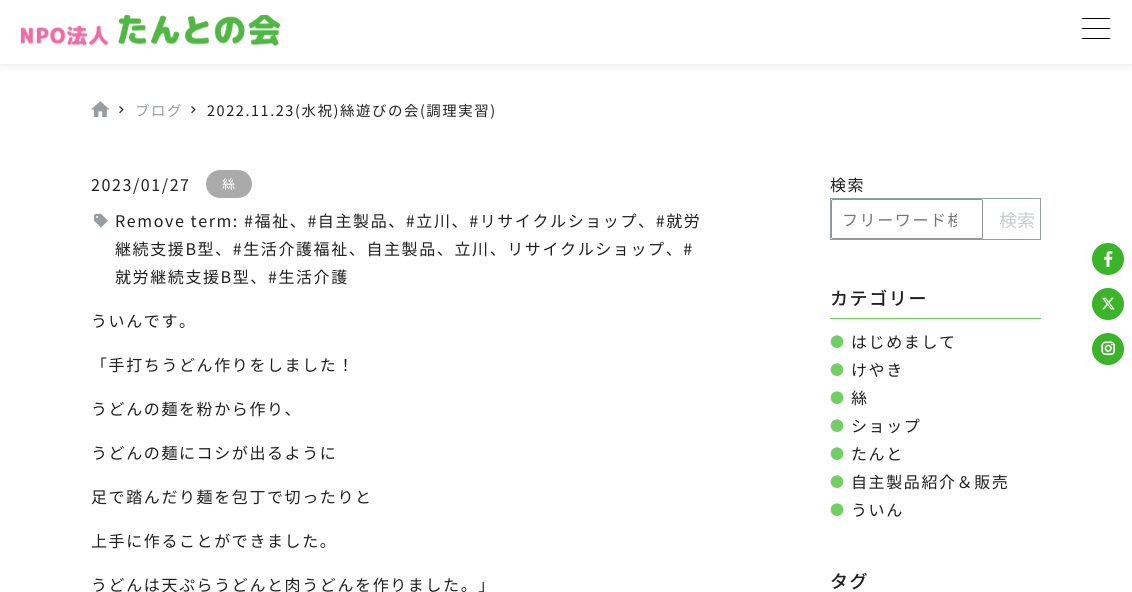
import math
import cairocffi as cairo

surface = cairo.ImageSurface(cairo.FORMAT_RGB24, 1132, 592)
ctx = cairo.Context(surface)
options = cairo.FontOptions()
options.set_hint_metrics(cairo.HINT_METRICS_OFF)
options.set_hint_style(cairo.HINT_STYLE_NONE)
ctx.set_font_options(options)
ctx.set_miter_limit(4)


def rgb(r, g, b):
    ctx.set_source_rgb(r / 255, g / 255, b / 255)


def face(family, size, italic, bold):
    ctx.select_font_face(family, cairo.FONT_SLANT_ITALIC if italic else cairo.FONT_SLANT_NORMAL, cairo.FONT_WEIGHT_BOLD if bold else cairo.FONT_WEIGHT_NORMAL)
    ctx.set_font_size(size)


def label(x, y, s):
    ctx.move_to(x, y)
    ctx.show_text(s)


def tracked(x, y, s, letter, word):
    ctx.move_to(x, y)
    for ch in s:
        ctx.show_text(ch)
        ctx.rel_move_to(letter + word * (ch == ' '), 0)


def rect(x, y, w, h):
    ctx.rectangle(x, y, w, h)
    ctx.fill()


def rrect(x, y, w, h, r):
    ctx.new_sub_path()
    for i, (u, v) in enumerate([(x + w - r, y + h - r), (x + r, y + h - r), (x + r, y + r), (x + w - r, y + r)]):
        ctx.arc(u, v, r, i * math.pi / 2, (i + 1) * math.pi / 2)
    ctx.close_path()


def soft_shadow(x, y, w, h, r, blur, alpha):
    ctx.push_group_with_content(cairo.CONTENT_ALPHA)
    ctx.set_operator(cairo.OPERATOR_SOURCE)
    for i in range(15, -16, -2):
        e = blur * i / 6
        if min(w, h) + 2 * e > 0:
            ctx.set_source_rgba(0, 0, 0, alpha * math.erfc((i - 1) / 8.5) / 2)
            rrect(x - e, y - e, w + 2 * e, h + 2 * e, max(0, min(r + e + blur * .6, min(w, h) / 2 + e)))
            ctx.fill()
    ctx.mask(ctx.pop_group())


def image(path, x, y, w, h):
    ctx.save()
    ctx.set_source_surface(cairo.ImageSurface.create_from_png(path), x, y)
    ctx.rectangle(x, y, w, h)
    ctx.fill()
    ctx.restore()


rgb(255, 255, 255)
ctx.paint()
rgb(0, 0, 0)
soft_shadow(0, 0, 1132, 64, 0, 5, 0.1)
rgb(255, 255, 255)
rect(0, 0, 1132, 64)
image('image0.png', 20, 15, 260, 31)
rgb(0, 0, 0)
rect(1082, 18, 28, 1)
rect(1082, 28, 28, 1)
rect(1082, 38, 28, 1)
image('image1.png', 91, 101, 19, 16)
image('image2.png', 119, 106, 5, 8)
face('Noto Sans JP', 14.4, 0, 0)
rgb(151, 157, 164)
tracked(135, 116, 'ブログ', 1.6, 0)
image('image2.png', 191, 106, 5, 8)
rgb(32, 32, 32)
tracked(207, 116, '2022.11.23(水祝)絲遊びの会(調理実習)', 1.6, 0)
face('Noto Sans JP', 16, 0, 0)
tracked(91, 191, '2023/01/27', 1.6, 0)
rgb(170, 170, 170)
rrect(206, 170, 46, 28, 14)
ctx.fill()
face('Noto Sans JP', 13, 0, 0)
rgb(255, 255, 255)
tracked(222, 189, '絲', 1, 0)
image('image3.png', 94, 213, 14, 15)
face('Noto Sans JP', 16, 0, 0)
rgb(32, 32, 32)
tracked(115, 227, 'Remove term: #福祉、#自主製品、#立川、#リサイクルショップ、#就労', 1.6, 0)
tracked(115, 255, '継続支援B型、#生活介護福祉、自主製品、立川、リサイクルショップ、#', 1.6, 0)
tracked(115, 283, '就労継続支援B型、#生活介護', 1.6, 0)
tracked(91, 327, 'ういんです。', 1.6, 0)
tracked(91, 371, '「手打ちうどん作りをしました！', 1.6, 0)
tracked(91, 415, 'うどんの麺を粉から作り、', 1.6, 0)
tracked(91, 459, 'うどんの麺にコシが出るように', 1.6, 0)
tracked(91, 503, '足で踏んだり麺を包丁で切ったりと', 1.6, 0)
tracked(91, 547, '上手に作ることができました。', 1.6, 0)
tracked(91, 591, 'うどんは天ぷらうどんと肉うどんを作りました。」', 1.6, 0)
tracked(830, 191, '検索', 1.6, 0)
ctx.rectangle(830.5, 198.5, 210, 41)
rgb(151, 157, 164)
ctx.set_line_width(1)
ctx.stroke()
rrect(831.5, 199.5, 151, 39, 1.5)
rgb(148, 148, 148)
ctx.stroke()
ctx.save()
ctx.rectangle(842, 207, 115, 24)
ctx.clip()
rgb(117, 117, 117)
tracked(842, 226, 'フリーワード検', 1.6, 0)
ctx.restore()
face('Noto Sans JP', 18, 0, 0)
rgb(201, 206, 210)
label(999, 227, '検索')
rgb(114, 207, 99)
rect(830, 318, 211, 1)
face('Noto Sans JP Medium', 18, 0, 0)
rgb(32, 32, 32)
tracked(830, 305, 'カテゴリー', 1.6, 0)
face('Noto Sans JP', 14, 0, 0)
rgb(114, 207, 99)
tracked(830, 347, '●', 1.6, 0)
face('Noto Sans JP', 16, 0, 0)
rgb(32, 32, 32)
tracked(851, 348, 'はじめまして', 1.6, 0)
face('Noto Sans JP', 14, 0, 0)
rgb(114, 207, 99)
tracked(830, 375, '●', 1.6, 0)
face('Noto Sans JP', 16, 0, 0)
rgb(32, 32, 32)
tracked(851, 376, 'けやき', 1.6, 0)
face('Noto Sans JP', 14, 0, 0)
rgb(114, 207, 99)
tracked(830, 403, '●', 1.6, 0)
face('Noto Sans JP', 16, 0, 0)
rgb(32, 32, 32)
tracked(851, 404, '絲', 1.6, 0)
face('Noto Sans JP', 14, 0, 0)
rgb(114, 207, 99)
tracked(830, 431, '●', 1.6, 0)
face('Noto Sans JP', 16, 0, 0)
rgb(32, 32, 32)
tracked(851, 432, 'ショップ', 1.6, 0)
face('Noto Sans JP', 14, 0, 0)
rgb(114, 207, 99)
tracked(830, 459, '●', 1.6, 0)
face('Noto Sans JP', 16, 0, 0)
rgb(32, 32, 32)
tracked(851, 460, 'たんと', 1.6, 0)
face('Noto Sans JP', 14, 0, 0)
rgb(114, 207, 99)
tracked(830, 487, '●', 1.6, 0)
face('Noto Sans JP', 16, 0, 0)
rgb(32, 32, 32)
tracked(851, 488, '自主製品紹介＆販売', 1.6, 0)
face('Noto Sans JP', 14, 0, 0)
rgb(114, 207, 99)
tracked(830, 515, '●', 1.6, 0)
face('Noto Sans JP', 16, 0, 0)
rgb(32, 32, 32)
tracked(851, 516, 'ういん', 1.6, 0)
face('Noto Sans JP Medium', 18, 0, 0)
tracked(830, 588, 'タグ', 1.6, 0)
rgb(60, 180, 41)
ctx.new_path()
ctx.arc(1108, 259, 16, 0, 2 * math.pi)
ctx.fill()
image('image4.png', 1104, 251, 9, 16)
ctx.arc(1108, 304, 16, 0, 2 * math.pi)
ctx.fill()
image('image5.png', 1101, 297, 14, 13)
ctx.arc(1108, 349, 16, 0, 2 * math.pi)
ctx.fill()
image('image6.png', 1101, 341, 14, 15)
surface.write_to_png('render.png')
